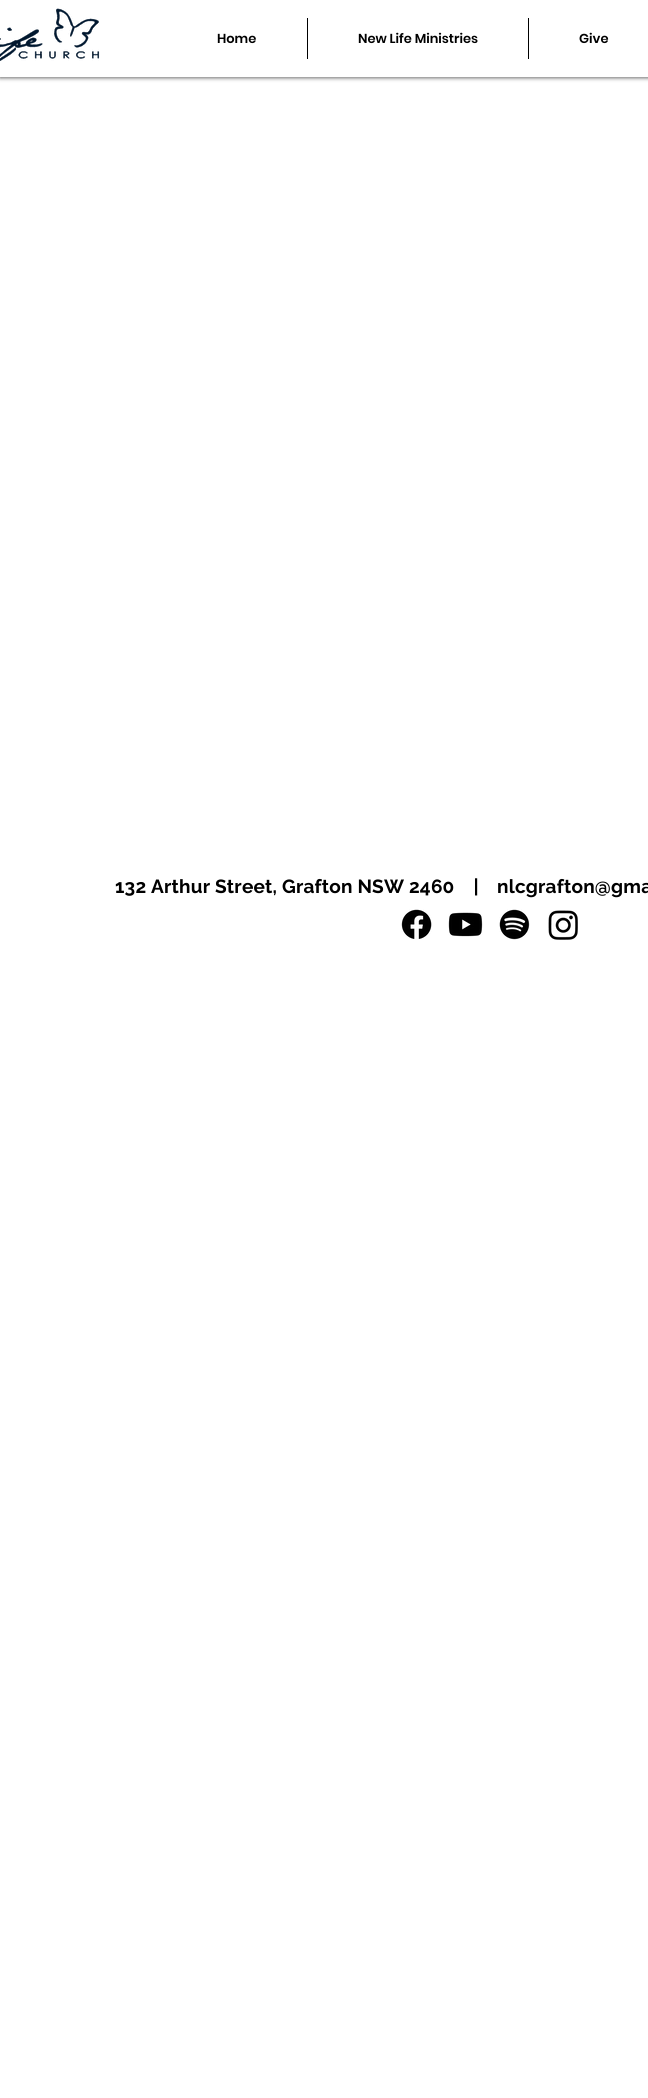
import math
import cairocffi as cairo

surface = cairo.ImageSurface(cairo.FORMAT_RGB24, 648, 2098)
ctx = cairo.Context(surface)
options = cairo.FontOptions()
options.set_hint_metrics(cairo.HINT_METRICS_OFF)
options.set_hint_style(cairo.HINT_STYLE_NONE)
ctx.set_font_options(options)
ctx.set_miter_limit(4)


def rgb(r, g, b):
    ctx.set_source_rgb(r / 255, g / 255, b / 255)


def face(family, size, italic, bold):
    ctx.select_font_face(family, cairo.FONT_SLANT_ITALIC if italic else cairo.FONT_SLANT_NORMAL, cairo.FONT_WEIGHT_BOLD if bold else cairo.FONT_WEIGHT_NORMAL)
    ctx.set_font_size(size)


def label(x, y, s):
    ctx.move_to(x, y)
    ctx.show_text(s)


def tracked(x, y, s, letter, word):
    ctx.move_to(x, y)
    for ch in s:
        ctx.show_text(ch)
        ctx.rel_move_to(letter + word * (ch == ' '), 0)


def rect(x, y, w, h):
    ctx.rectangle(x, y, w, h)
    ctx.fill()


def rrect(x, y, w, h, r):
    ctx.new_sub_path()
    for i, (u, v) in enumerate([(x + w - r, y + h - r), (x + r, y + h - r), (x + r, y + r), (x + w - r, y + r)]):
        ctx.arc(u, v, r, i * math.pi / 2, (i + 1) * math.pi / 2)
    ctx.close_path()


def soft_shadow(x, y, w, h, r, blur, alpha):
    ctx.push_group_with_content(cairo.CONTENT_ALPHA)
    ctx.set_operator(cairo.OPERATOR_SOURCE)
    for i in range(15, -16, -2):
        e = blur * i / 6
        if min(w, h) + 2 * e > 0:
            ctx.set_source_rgba(0, 0, 0, alpha * math.erfc((i - 1) / 8.5) / 2)
            rrect(x - e, y - e, w + 2 * e, h + 2 * e, max(0, min(r + e + blur * .6, min(w, h) / 2 + e)))
            ctx.fill()
    ctx.mask(ctx.pop_group())


def image(path, x, y, w, h):
    ctx.save()
    ctx.set_source_surface(cairo.ImageSurface.create_from_png(path), x, y)
    ctx.rectangle(x, y, w, h)
    ctx.fill()
    ctx.restore()


rgb(255, 255, 255)
ctx.paint()
rgb(0, 0, 0)
soft_shadow(0, 1, 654, 77, 0, 2, 0.6)
rgb(255, 255, 255)
rect(0, 0, 648, 77)
image('image0.png', 0, 8, 100, 53)
face('Poppins SemiBold', 13, 0, 0)
rgb(0, 0, 0)
label(217, 43, 'Home')
rect(307, 18, 1, 41)
label(358, 43, 'New Life Ministries')
rect(528, 18, 1, 41)
label(579, 43, 'Give')
face('Raleway', 19, 0, 1)
tracked(115, 893, '132 Arthur Street, Grafton NSW 2460    |', 0.2, 0)
tracked(497, 893, 'nlcgrafton@gma', 0.2, 0)
image('image1.png', 401, 909, 31, 30)
image('image2.png', 448, 912, 35, 25)
image('image3.png', 499, 909, 31, 31)
image('image4.png', 548, 910, 30, 30)
surface.write_to_png('render.png')
